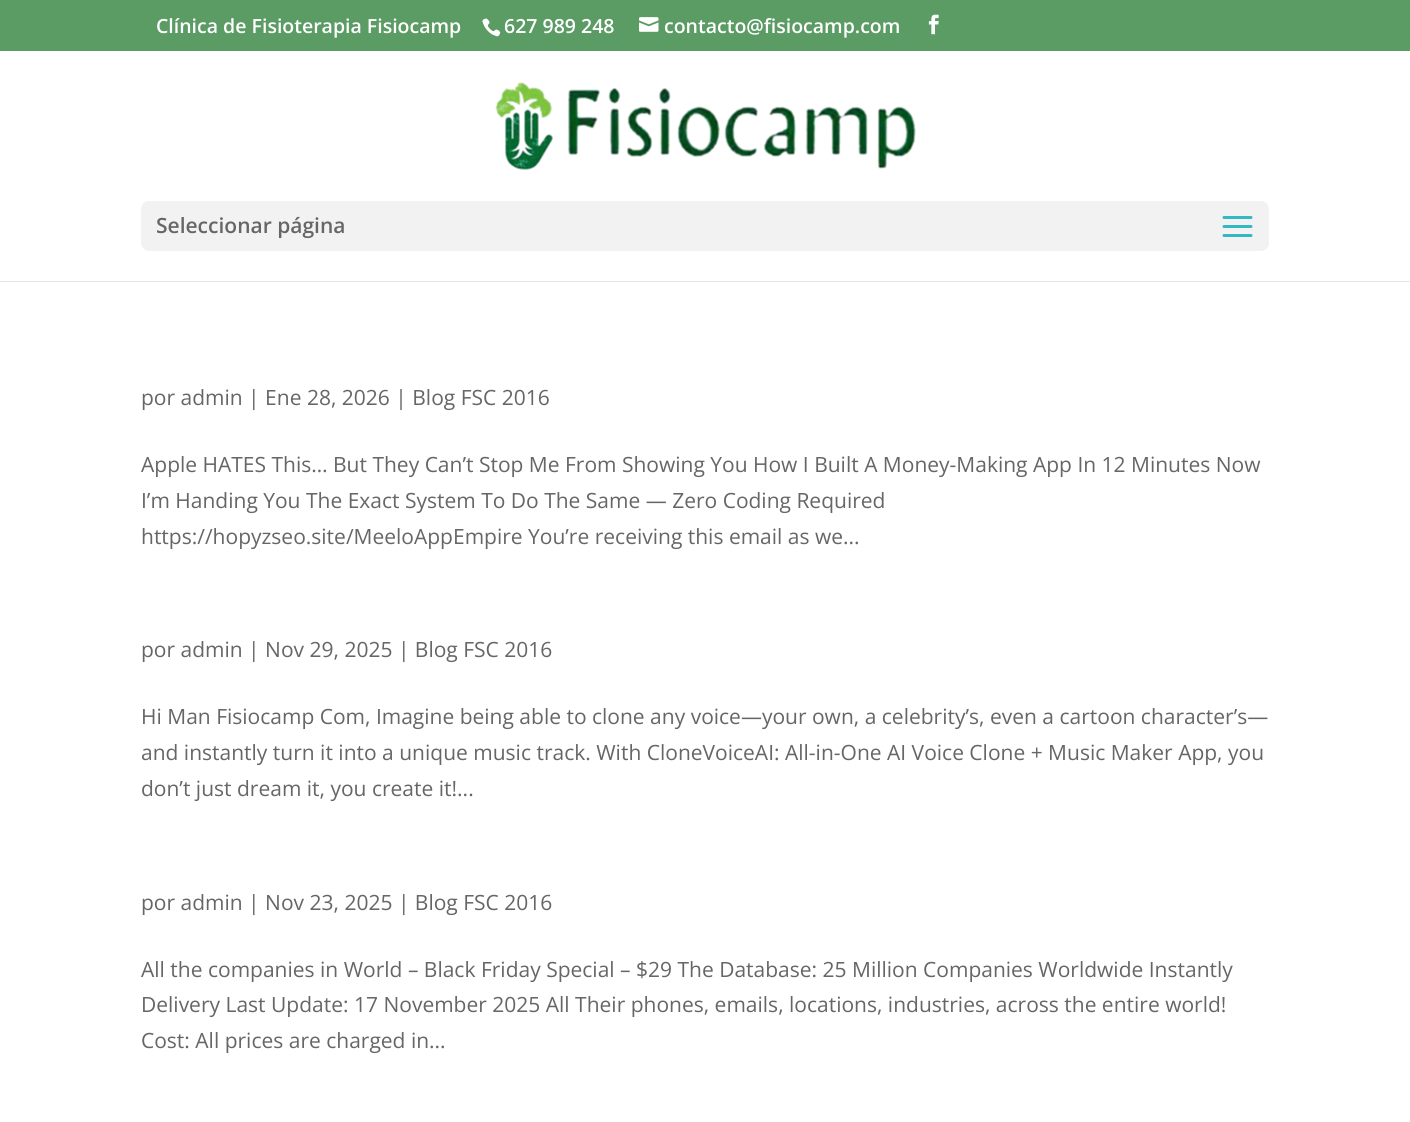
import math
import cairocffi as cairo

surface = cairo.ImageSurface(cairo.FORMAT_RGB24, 1410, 1122)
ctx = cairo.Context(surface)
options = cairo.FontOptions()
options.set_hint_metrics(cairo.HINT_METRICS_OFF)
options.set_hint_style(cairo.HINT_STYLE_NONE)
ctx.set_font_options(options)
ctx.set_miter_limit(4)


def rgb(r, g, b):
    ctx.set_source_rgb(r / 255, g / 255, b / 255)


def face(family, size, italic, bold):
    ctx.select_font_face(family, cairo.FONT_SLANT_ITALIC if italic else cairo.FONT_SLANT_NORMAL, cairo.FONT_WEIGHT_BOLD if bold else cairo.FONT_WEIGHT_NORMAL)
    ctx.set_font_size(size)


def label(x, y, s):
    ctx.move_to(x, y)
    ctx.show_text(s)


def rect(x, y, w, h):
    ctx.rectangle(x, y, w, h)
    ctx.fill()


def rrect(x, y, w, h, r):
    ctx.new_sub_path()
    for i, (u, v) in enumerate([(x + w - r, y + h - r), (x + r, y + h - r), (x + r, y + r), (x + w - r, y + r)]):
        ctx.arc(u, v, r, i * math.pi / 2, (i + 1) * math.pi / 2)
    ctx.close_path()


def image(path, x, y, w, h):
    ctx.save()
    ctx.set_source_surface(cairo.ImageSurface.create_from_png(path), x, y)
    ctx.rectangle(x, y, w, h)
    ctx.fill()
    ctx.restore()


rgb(255, 255, 255)
ctx.paint()
rgb(91, 155, 100)
rect(0, 0, 1410, 51)
face('Open Sans SemiBold', 19.5, 0, 0)
rgb(255, 255, 255)
label(156, 33, 'Clínica de Fisioterapia Fisiocamp')
image('image0.png', 482, 18, 19, 19)
label(504, 33, '627 989 248')
image('image1.png', 639, 17, 20, 15)
label(664, 33, 'contacto@fisiocamp.com')
image('image2.png', 928, 14, 11, 21)
rgb(230, 230, 230)
rect(0, 281, 1410, 1)
image('image3.png', 495, 82, 421, 88)
rgb(242, 242, 242)
rrect(141, 201, 1128, 50, 8)
ctx.fill()
face('Open Sans SemiBold', 21, 0, 0)
rgb(102, 102, 102)
label(156, 233, 'Seleccionar página')
image('image4.png', 1222, 216, 31, 21)
face('Open Sans', 21, 0, 0)
label(141, 405, 'por admin | Ene 28, 2026 | Blog FSC 2016')
label(141, 472, 'Apple HATES This… But They Can’t Stop Me From Showing You How I Built A Money-Making App In 12 Minutes Now')
label(141, 508, 'I’m Handing You The Exact System To Do The Same — Zero Coding Required')
label(141, 544, 'https://hopyzseo.site/MeeloAppEmpire You’re receiving this email as we...')
label(141, 657, 'por admin | Nov 29, 2025 | Blog FSC 2016')
label(141, 724, 'Hi Man Fisiocamp Com, Imagine being able to clone any voice—your own, a celebrity’s, even a cartoon character’s—')
label(141, 760, 'and instantly turn it into a unique music track. With CloneVoiceAI: All-in-One AI Voice Clone + Music Maker App, you')
label(141, 796, 'don’t just dream it, you create it!...')
label(141, 910, 'por admin | Nov 23, 2025 | Blog FSC 2016')
label(141, 977, 'All the companies in World – Black Friday Special – $29 The Database: 25 Million Companies Worldwide Instantly')
label(141, 1012, 'Delivery Last Update: 17 November 2025 All Their phones, emails, locations, industries, across the entire world!')
label(141, 1048, 'Cost: All prices are charged in...')
surface.write_to_png('render.png')
